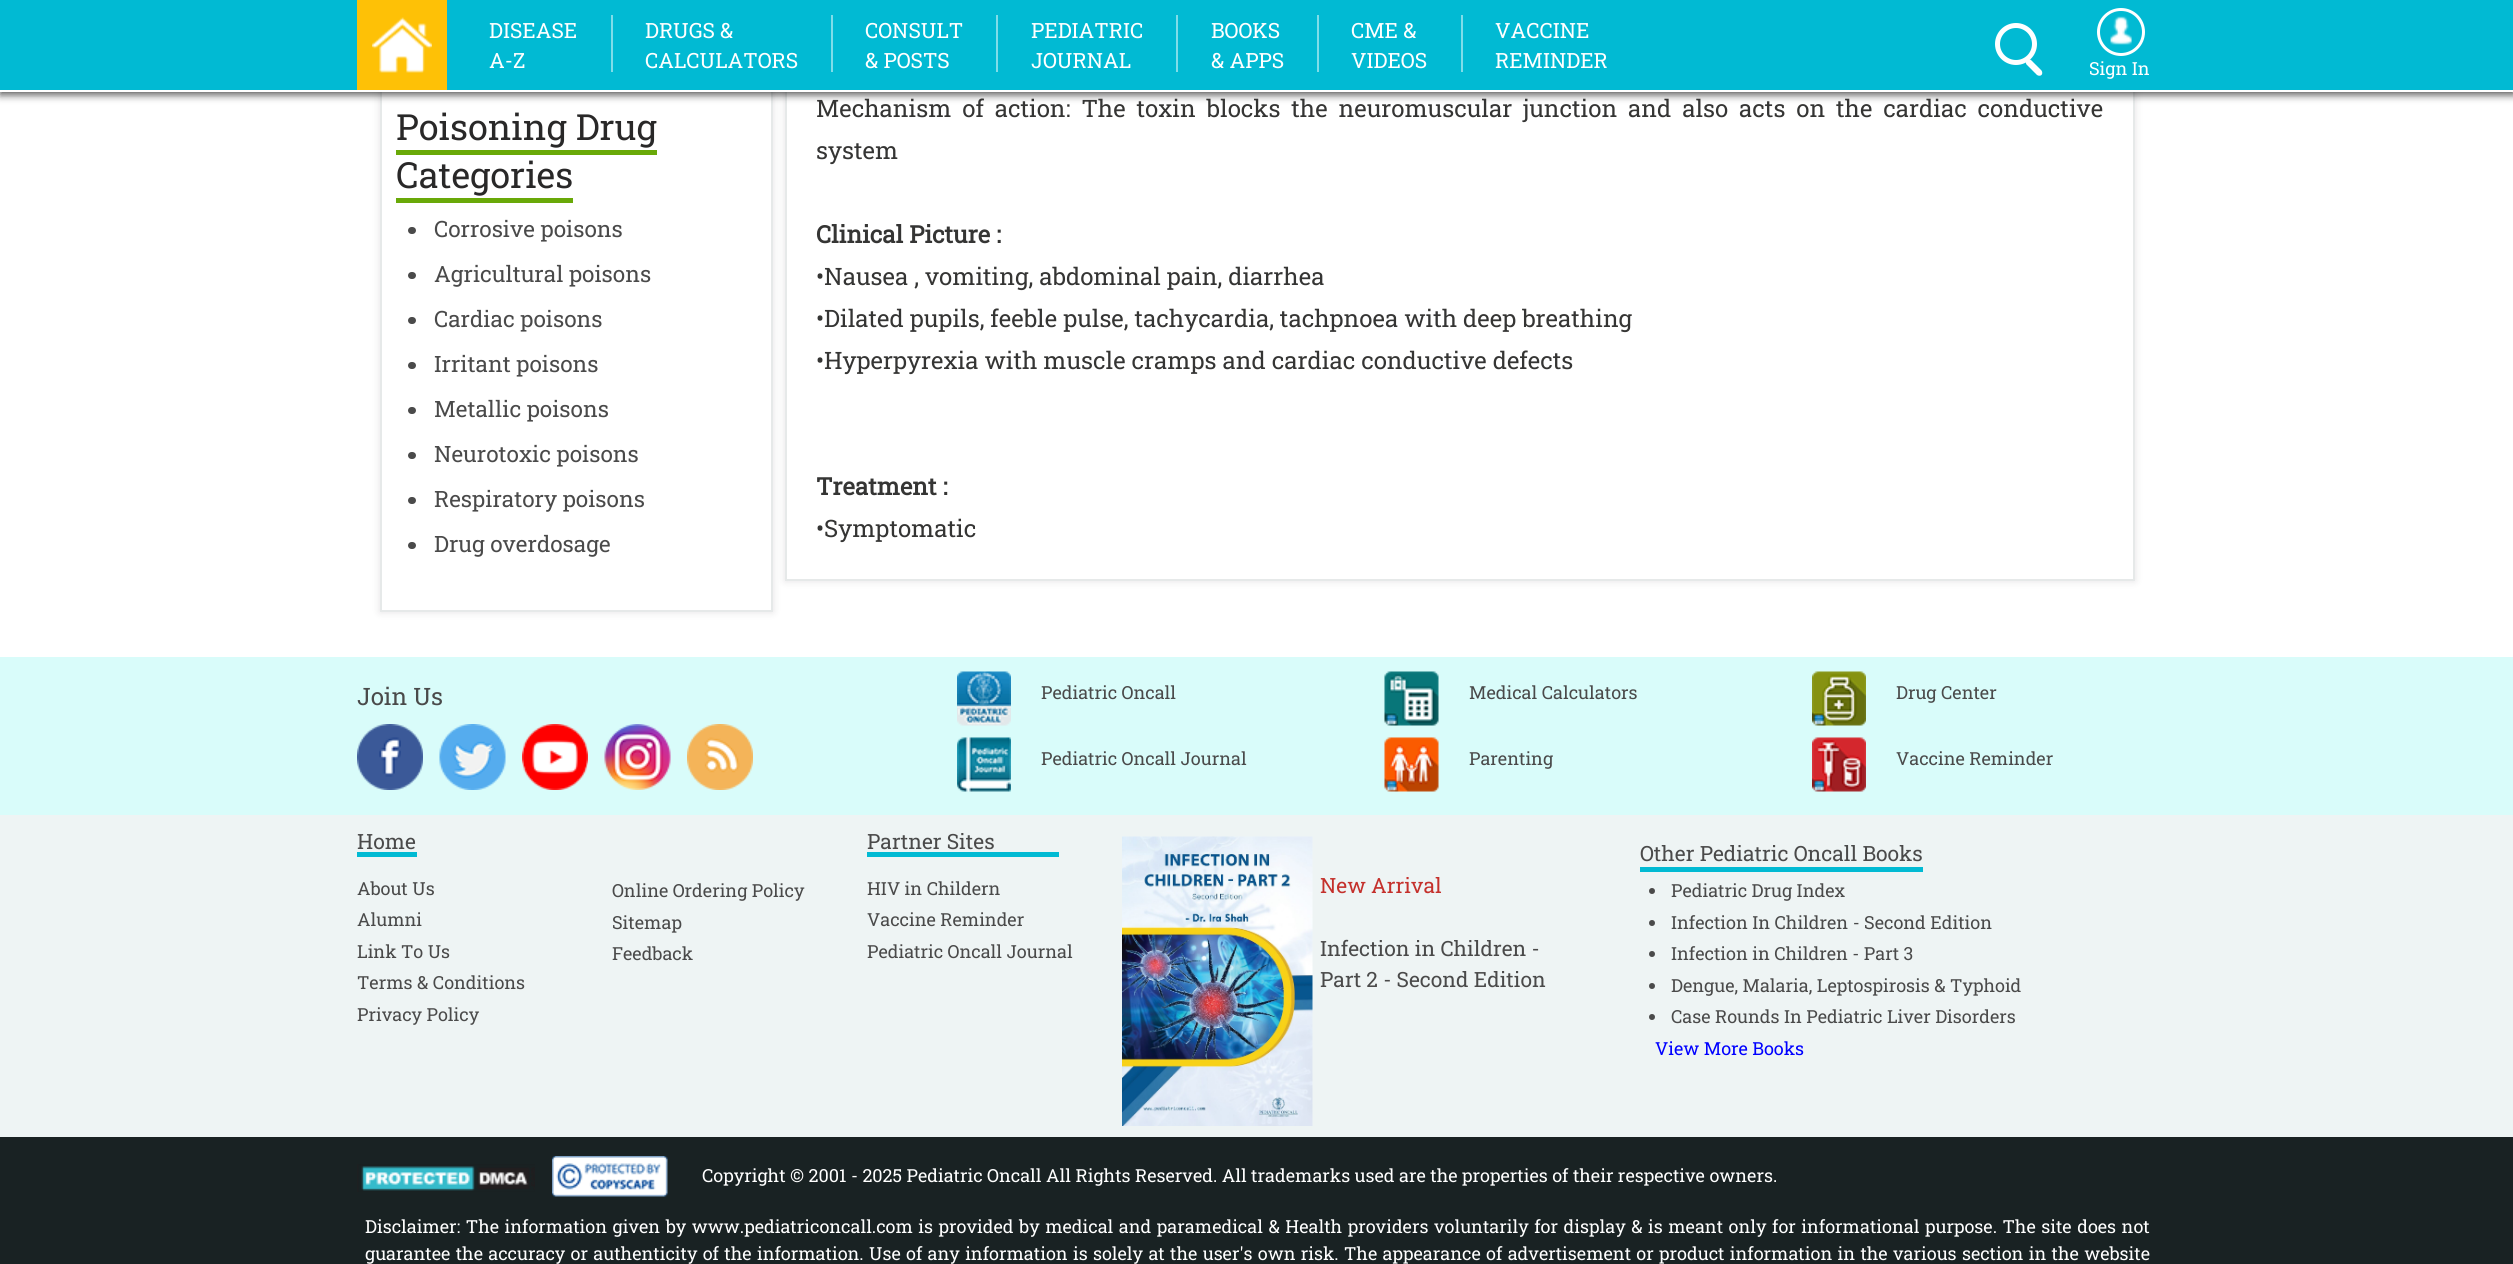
import math
import cairocffi as cairo

surface = cairo.ImageSurface(cairo.FORMAT_RGB24, 2513, 1264)
ctx = cairo.Context(surface)
options = cairo.FontOptions()
options.set_hint_metrics(cairo.HINT_METRICS_OFF)
options.set_hint_style(cairo.HINT_STYLE_NONE)
ctx.set_font_options(options)
ctx.set_miter_limit(4)


def rgb(r, g, b):
    ctx.set_source_rgb(r / 255, g / 255, b / 255)


def face(family, size, italic, bold):
    ctx.select_font_face(family, cairo.FONT_SLANT_ITALIC if italic else cairo.FONT_SLANT_NORMAL, cairo.FONT_WEIGHT_BOLD if bold else cairo.FONT_WEIGHT_NORMAL)
    ctx.set_font_size(size)


def label(x, y, s):
    ctx.move_to(x, y)
    ctx.show_text(s)


def tracked(x, y, s, letter, word):
    ctx.move_to(x, y)
    for ch in s:
        ctx.show_text(ch)
        ctx.rel_move_to(letter + word * (ch == ' '), 0)


def rect(x, y, w, h):
    ctx.rectangle(x, y, w, h)
    ctx.fill()


def rrect(x, y, w, h, r):
    ctx.new_sub_path()
    for i, (u, v) in enumerate([(x + w - r, y + h - r), (x + r, y + h - r), (x + r, y + r), (x + w - r, y + r)]):
        ctx.arc(u, v, r, i * math.pi / 2, (i + 1) * math.pi / 2)
    ctx.close_path()


def soft_shadow(x, y, w, h, r, blur, alpha):
    ctx.push_group_with_content(cairo.CONTENT_ALPHA)
    ctx.set_operator(cairo.OPERATOR_SOURCE)
    for i in range(15, -16, -2):
        e = blur * i / 6
        if min(w, h) + 2 * e > 0:
            ctx.set_source_rgba(0, 0, 0, alpha * math.erfc((i - 1) / 8.5) / 2)
            rrect(x - e, y - e, w + 2 * e, h + 2 * e, max(0, min(r + e + blur * .6, min(w, h) / 2 + e)))
            ctx.fill()
    ctx.mask(ctx.pop_group())


def image(path, x, y, w, h):
    ctx.save()
    ctx.set_source_surface(cairo.ImageSurface.create_from_png(path), x, y)
    ctx.rectangle(x, y, w, h)
    ctx.fill()
    ctx.restore()


rgb(255, 255, 255)
ctx.paint()
ctx.save()
ctx.set_fill_rule(cairo.FILL_RULE_EVEN_ODD)
ctx.new_path()
ctx.move_to(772, 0)
ctx.line_to(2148, 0)
ctx.line_to(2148, 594)
ctx.line_to(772, 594)
ctx.close_path()
ctx.move_to(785, -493)
ctx.line_to(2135, -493)
ctx.line_to(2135, 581)
ctx.line_to(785, 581)
ctx.close_path()
ctx.clip()
rgb(163, 157, 163)
soft_shadow(785, -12, 1350, 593, 0, 4, 0.3)
ctx.restore()
ctx.rectangle(786, -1, 1348, 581)
rgb(230, 233, 233)
ctx.stroke()
ctx.save()
ctx.set_fill_rule(cairo.FILL_RULE_EVEN_ODD)
ctx.new_path()
ctx.move_to(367, 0)
ctx.line_to(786, 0)
ctx.line_to(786, 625)
ctx.line_to(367, 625)
ctx.close_path()
ctx.move_to(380, -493)
ctx.line_to(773, -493)
ctx.line_to(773, 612)
ctx.line_to(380, 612)
ctx.close_path()
ctx.clip()
rgb(163, 157, 163)
soft_shadow(380, -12, 393, 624, 0, 4, 0.3)
ctx.restore()
ctx.rectangle(381, -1, 391, 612)
ctx.stroke()
rgb(0, 0, 0)
soft_shadow(0, 3, 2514, 92, 0, 4, 0.65)
rgb(1, 186, 211)
rect(0, 0, 2513, 90)
rgb(255, 255, 255)
rect(0, 90, 2513, 2)
rgb(254, 193, 6)
rect(357, 0, 90, 90)
image('image0.png', 372, 17, 60, 56)
face('Roboto Slab', 21, 0, 0)
rgb(255, 255, 255)
label(489, 38, 'DISEASE')
label(489, 68, 'A-Z')
rgb(128, 221, 233)
rect(611, 15, 2, 57)
rgb(255, 255, 255)
label(645, 38, 'DRUGS &')
label(645, 68, 'CALCULATORS')
rgb(128, 221, 233)
rect(831, 15, 2, 57)
rgb(255, 255, 255)
label(865, 38, 'CONSULT')
label(865, 68, '& POSTS')
rgb(128, 221, 233)
rect(996, 15, 2, 57)
rgb(255, 255, 255)
label(1031, 38, 'PEDIATRIC')
label(1031, 68, 'JOURNAL')
rgb(128, 221, 233)
rect(1176, 15, 2, 57)
rgb(255, 255, 255)
label(1211, 38, 'BOOKS')
label(1211, 68, '& APPS')
rgb(128, 221, 233)
rect(1317, 15, 2, 57)
rgb(255, 255, 255)
label(1351, 38, 'CME &')
label(1351, 68, 'VIDEOS')
rgb(128, 221, 233)
rect(1461, 15, 2, 57)
rgb(255, 255, 255)
label(1495, 38, 'VACCINE')
label(1495, 68, 'REMINDER')
ctx.new_path()
ctx.arc(2016, 44, 18.5, 0, 2 * math.pi)
ctx.set_line_width(5)
ctx.stroke()
ctx.new_path()
ctx.move_to(2031, 60)
ctx.line_to(2041.5, 70.5)
ctx.curve_to(2042.5, 72, 2042.5, 74, 2041.5, 75)
ctx.curve_to(2040.5, 76, 2038.5, 76, 2037, 75)
ctx.line_to(2026.5, 64.5)
ctx.curve_to(2025.5, 63, 2025.5, 61, 2026.5, 60)
ctx.curve_to(2027.5, 59, 2029.5, 59, 2031, 60)
ctx.close_path()
ctx.fill()
ctx.arc(2121, 32, 22.5, 0, 2 * math.pi)
ctx.set_line_width(3)
ctx.stroke()
image('image1.png', 2101, 11, 40, 34)
face('Roboto Slab', 18, 0, 0)
label(2089, 75, 'Sign In')
face('Roboto Slab', 36, 0, 0)
rgb(41, 40, 40)
label(396, 140, 'Poisoning Drug')
rgb(105, 169, 8)
rect(396, 150, 261, 5)
rgb(41, 40, 40)
label(396, 188, 'Categories')
rgb(105, 169, 8)
rect(396, 198, 177, 5)
rgb(74, 74, 74)
rrect(408, 227, 8, 7, 3.5)
ctx.fill()
face('Roboto Slab', 22.5, 0, 0)
label(434, 237, 'Corrosive poisons')
rrect(408, 272, 8, 7, 3.5)
ctx.fill()
label(434, 282, 'Agricultural poisons')
rrect(408, 317, 8, 7, 3.5)
ctx.fill()
label(434, 327, 'Cardiac poisons')
rrect(408, 362, 8, 7, 3.5)
ctx.fill()
label(434, 372, 'Irritant poisons')
rrect(408, 407, 8, 7, 3.5)
ctx.fill()
label(434, 417, 'Metallic poisons')
rrect(408, 452, 8, 7, 3.5)
ctx.fill()
label(434, 462, 'Neurotoxic poisons')
rrect(408, 497, 8, 7, 3.5)
ctx.fill()
label(434, 507, 'Respiratory poisons')
rrect(408, 542, 8, 7, 3.5)
ctx.fill()
label(434, 552, 'Drug overdosage')
face('Roboto Slab', 24, 0, 0)
rgb(53, 53, 52)
tracked(816, 117, 'Mechanism of action: The toxin blocks the neuromuscular junction and also acts on the cardiac conductive', 0, 4.9)
label(816, 159, 'system')
face('Roboto Slab', 24, 0, 1)
label(816, 243, 'Clinical Picture :')
face('Roboto Slab', 24, 0, 0)
label(816, 285, '•Nausea , vomiting, abdominal pain, diarrhea')
label(816, 327, '•Dilated pupils, feeble pulse, tachycardia, tachpnoea with deep breathing')
label(816, 369, '•Hyperpyrexia with muscle cramps and cardiac conductive defects')
face('Roboto Slab', 24, 0, 1)
label(816, 495, 'Treatment :')
face('Roboto Slab', 24, 0, 0)
label(816, 537, '•Symptomatic')
rgb(217, 252, 250)
rect(0, 657, 2513, 158)
rgb(74, 74, 74)
label(357, 705, 'Join Us')
image('image2.png', 357, 724, 66, 66)
image('image3.png', 439, 724, 67, 66)
image('image4.png', 522, 724, 66, 66)
image('image5.png', 604, 724, 67, 66)
image('image6.png', 687, 724, 66, 66)
image('image7.png', 957, 671, 54, 55)
face('Roboto Slab', 18, 0, 0)
label(1041, 699, 'Pediatric Oncall')
image('image8.png', 1384, 671, 55, 55)
label(1469, 699, 'Medical Calculators')
image('image9.png', 1812, 671, 54, 55)
label(1896, 699, 'Drug Center')
image('image10.png', 957, 737, 54, 55)
label(1041, 765, 'Pediatric Oncall Journal')
image('image11.png', 1384, 737, 55, 55)
label(1469, 765, 'Parenting')
image('image12.png', 1812, 737, 54, 55)
label(1896, 765, 'Vaccine Reminder')
rgb(238, 244, 244)
rect(0, 815, 2513, 322)
rgb(1, 186, 211)
rect(357, 852, 60, 5)
face('Roboto Slab', 21, 0, 0)
rgb(74, 74, 74)
label(357, 849, 'Home')
face('Roboto Slab', 18, 0, 0)
label(357, 895, 'About Us')
label(357, 926, 'Alumni')
label(357, 958, 'Link To Us')
label(357, 989, 'Terms & Conditions')
label(357, 1021, 'Privacy Policy')
label(612, 897, 'Online Ordering Policy')
label(612, 929, 'Sitemap')
label(612, 960, 'Feedback')
rgb(1, 186, 211)
rect(867, 852, 192, 5)
face('Roboto Slab', 21, 0, 0)
rgb(74, 74, 74)
label(867, 849, 'Partner Sites')
face('Roboto Slab', 18, 0, 0)
label(867, 895, 'HIV in Childern')
label(867, 926, 'Vaccine Reminder')
label(867, 958, 'Pediatric Oncall Journal')
image('image13.png', 1122, 836, 191, 290)
face('Roboto Slab', 21, 0, 0)
rgb(196, 48, 43)
label(1320, 893, 'New Arrival')
rgb(74, 74, 74)
label(1320, 956, 'Infection in Children -')
label(1320, 987, 'Part 2 - Second Edition')
label(1640, 861, 'Other Pediatric Oncall Books')
rgb(1, 186, 211)
rect(1640, 867, 283, 5)
rgb(74, 74, 74)
ctx.new_path()
ctx.arc(1652, 891, 3, 0, 2 * math.pi)
ctx.fill()
face('Roboto Slab', 18, 0, 0)
label(1671, 897, 'Pediatric Drug Index')
ctx.new_path()
ctx.arc(1652, 923, 3, 0, 2 * math.pi)
ctx.fill()
label(1671, 929, 'Infection In Children - Second Edition')
ctx.new_path()
ctx.arc(1652, 954, 3, 0, 2 * math.pi)
ctx.fill()
label(1671, 960, 'Infection in Children - Part 3')
ctx.new_path()
ctx.arc(1652, 986, 3, 0, 2 * math.pi)
ctx.fill()
label(1671, 992, 'Dengue, Malaria, Leptospirosis & Typhoid')
ctx.new_path()
ctx.arc(1652, 1017, 3, 0, 2 * math.pi)
ctx.fill()
label(1671, 1023, 'Case Rounds In Pediatric Liver Disorders')
rgb(0, 0, 255)
label(1655, 1055, 'View More Books')
rgb(25, 34, 35)
rect(0, 1137, 2513, 127)
image('image14.png', 357, 1164, 178, 28)
image('image15.png', 552, 1156, 116, 41)
rgb(255, 255, 255)
label(702, 1182, 'Copyright © 2001 - 2025 Pediatric Oncall All Rights Reserved. All trademarks used are the properties of their respective owners.')
tracked(365, 1233, 'Disclaimer: The information given by www.pediatriconcall.com is provided by medical and paramedical & Health providers voluntarily for display & is meant only for informational purpose. The site does not', 0, 1.05)
tracked(365, 1260, 'guarantee the accuracy or authenticity of the information. Use of any information is solely at the user\'s own risk. The appearance of advertisement or product information in the various section in the website', 0, 0.85)
surface.write_to_png('render.png')
